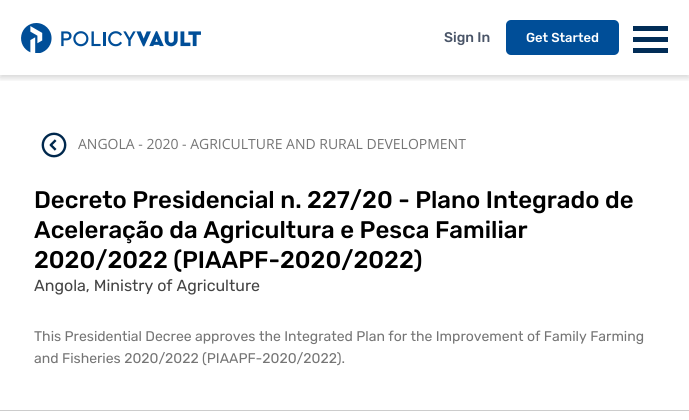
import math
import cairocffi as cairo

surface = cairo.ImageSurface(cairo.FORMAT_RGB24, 689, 420)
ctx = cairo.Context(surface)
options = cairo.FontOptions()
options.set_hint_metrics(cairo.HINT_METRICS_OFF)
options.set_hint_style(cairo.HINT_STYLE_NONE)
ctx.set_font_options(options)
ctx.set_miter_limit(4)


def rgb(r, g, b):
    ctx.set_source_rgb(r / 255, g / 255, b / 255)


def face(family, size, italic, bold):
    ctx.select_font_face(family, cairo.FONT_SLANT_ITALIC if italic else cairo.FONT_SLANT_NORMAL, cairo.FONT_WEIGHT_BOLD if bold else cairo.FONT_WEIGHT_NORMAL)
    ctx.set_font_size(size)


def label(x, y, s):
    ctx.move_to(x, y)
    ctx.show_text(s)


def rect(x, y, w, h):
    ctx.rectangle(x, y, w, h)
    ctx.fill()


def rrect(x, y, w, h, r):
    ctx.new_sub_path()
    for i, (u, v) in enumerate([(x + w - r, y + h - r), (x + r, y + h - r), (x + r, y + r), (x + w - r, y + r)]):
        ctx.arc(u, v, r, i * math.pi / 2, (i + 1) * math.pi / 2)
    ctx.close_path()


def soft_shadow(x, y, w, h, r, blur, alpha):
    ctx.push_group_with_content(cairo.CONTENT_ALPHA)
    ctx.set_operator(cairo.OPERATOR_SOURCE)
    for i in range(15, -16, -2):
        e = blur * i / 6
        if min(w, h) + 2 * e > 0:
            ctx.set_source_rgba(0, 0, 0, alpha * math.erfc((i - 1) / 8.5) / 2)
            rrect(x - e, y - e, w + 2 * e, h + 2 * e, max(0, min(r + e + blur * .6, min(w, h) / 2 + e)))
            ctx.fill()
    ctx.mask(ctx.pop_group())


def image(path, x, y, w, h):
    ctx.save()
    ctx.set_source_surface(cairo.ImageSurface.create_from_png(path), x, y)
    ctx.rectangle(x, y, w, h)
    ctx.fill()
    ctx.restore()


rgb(255, 255, 255)
ctx.paint()
ctx.save()
ctx.rectangle(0, 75, 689, 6)
ctx.clip()
rgb(0, 0, 0)
soft_shadow(0, 3, 689, 75, 0, 3, 0.16)
ctx.restore()
image('image0.png', 21, 23, 180, 30)
face('Rubik Medium', 14, 0, 0)
rgb(74, 85, 104)
label(444, 42, 'Sign In')
rgb(0, 78, 152)
rrect(506, 20, 113, 35, 5)
ctx.fill()
face('Rubik Medium', 13, 0, 0)
rgb(255, 255, 255)
label(526, 42, 'Get Started')
rgb(1, 45, 87)
rect(633, 26, 35, 5)
rect(633, 37, 35, 5)
rect(633, 48, 35, 5)
rgb(204, 204, 204)
rect(0, 410, 689, 1)
image('image1.png', 41, 132, 26, 26)
face('Open Sans', 14, 0, 0)
rgb(117, 117, 117)
label(78, 149, 'ANGOLA - 2020 - AGRICULTURE AND RURAL DEVELOPMENT')
face('Rubik Medium', 24, 0, 0)
rgb(0, 0, 0)
label(34, 208, 'Decreto Presidencial n. 227/20 - Plano Integrado de')
label(34, 238, 'Aceleração da Agricultura e Pesca Familiar')
label(34, 268, '2020/2022 (PIAAPF-2020/2022)')
face('Rubik', 16, 0, 0)
rgb(68, 68, 68)
label(34, 291, 'Angola, Ministry of Agriculture')
face('Rubik', 14, 0, 0)
rgb(117, 117, 117)
label(34, 341, 'This Presidential Decree approves the Integrated Plan for the Improvement of Family Farming')
label(34, 363, 'and Fisheries 2020/2022 (PIAAPF-2020/2022).')
surface.write_to_png('render.png')
